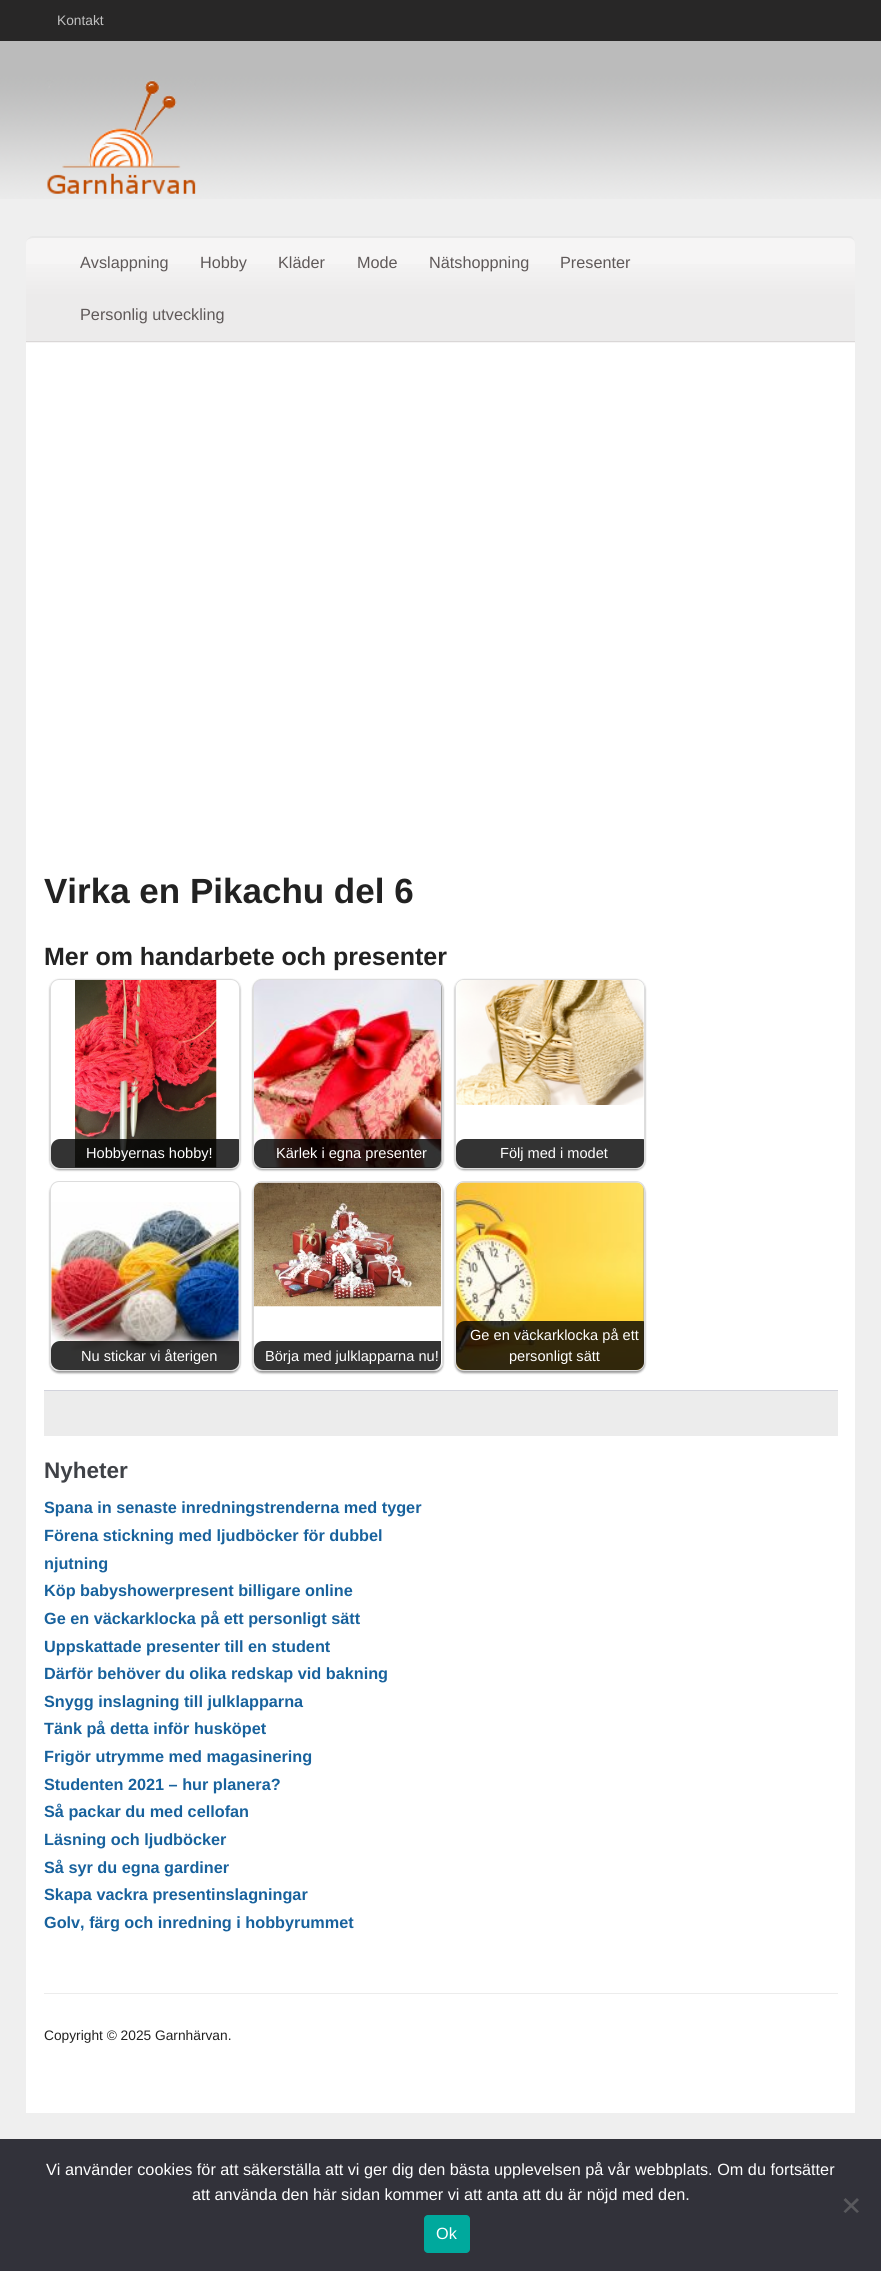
import math
import cairocffi as cairo

surface = cairo.ImageSurface(cairo.FORMAT_RGB24, 881, 2271)
ctx = cairo.Context(surface)
options = cairo.FontOptions()
options.set_hint_metrics(cairo.HINT_METRICS_OFF)
options.set_hint_style(cairo.HINT_STYLE_NONE)
ctx.set_font_options(options)
ctx.set_miter_limit(4)


def rgb(r, g, b):
    ctx.set_source_rgb(r / 255, g / 255, b / 255)


def face(family, size, italic, bold):
    ctx.select_font_face(family, cairo.FONT_SLANT_ITALIC if italic else cairo.FONT_SLANT_NORMAL, cairo.FONT_WEIGHT_BOLD if bold else cairo.FONT_WEIGHT_NORMAL)
    ctx.set_font_size(size)


def label(x, y, s):
    ctx.move_to(x, y)
    ctx.show_text(s)


def rect(x, y, w, h):
    ctx.rectangle(x, y, w, h)
    ctx.fill()


def rrect(x, y, w, h, r):
    ctx.new_sub_path()
    for i, (u, v) in enumerate([(x + w - r, y + h - r), (x + r, y + h - r), (x + r, y + r), (x + w - r, y + r)]):
        ctx.arc(u, v, r, i * math.pi / 2, (i + 1) * math.pi / 2)
    ctx.close_path()


def soft_shadow(x, y, w, h, r, blur, alpha):
    ctx.push_group_with_content(cairo.CONTENT_ALPHA)
    ctx.set_operator(cairo.OPERATOR_SOURCE)
    for i in range(15, -16, -2):
        e = blur * i / 6
        if min(w, h) + 2 * e > 0:
            ctx.set_source_rgba(0, 0, 0, alpha * math.erfc((i - 1) / 8.5) / 2)
            rrect(x - e, y - e, w + 2 * e, h + 2 * e, max(0, min(r + e + blur * .6, min(w, h) / 2 + e)))
            ctx.fill()
    ctx.mask(ctx.pop_group())


def image(path, x, y, w, h):
    ctx.save()
    ctx.set_source_surface(cairo.ImageSurface.create_from_png(path), x, y)
    ctx.rectangle(x, y, w, h)
    ctx.fill()
    ctx.restore()


rgb(239, 239, 239)
ctx.paint()
image('image0.png', 0, 41, 881, 158)
rgb(40, 39, 39)
rect(0, 0, 881, 41)
face('Liberation Sans', 13.75, 0, 0)
rgb(192, 192, 192)
label(57, 25, 'Kontakt')
image('image1.png', 47, 80, 149, 114)
rgb(246, 245, 245)
ctx.new_path()
ctx.move_to(34, 236)
ctx.line_to(847, 236)
ctx.curve_to(851.5, 236, 855, 239.5, 855, 244)
ctx.line_to(855, 343)
ctx.line_to(26, 343)
ctx.line_to(26, 244)
ctx.curve_to(26, 239.5, 29.5, 236, 34, 236)
ctx.close_path()
ctx.fill()
gradient = cairo.LinearGradient(441, 341, 441, 238)
gradient.add_color_stop_rgba(0, 0, 0, 0, 0.04)
gradient.add_color_stop_rgba(0.44, 0, 0, 0, 0.04)
gradient.add_color_stop_rgba(0.86, 1, 1, 1, 0.04)
gradient.add_color_stop_rgba(1, 1, 1, 1, 0.04)
ctx.set_source(gradient)
rect(26, 264, 829, 77)
rgb(232, 232, 232)
ctx.new_path()
ctx.move_to(34, 238)
ctx.curve_to(31, 238, 27, 239, 26, 242)
ctx.curve_to(26, 240, 30, 236, 32, 236)
ctx.line_to(850, 236)
ctx.curve_to(853, 236, 855, 241, 855, 244)
ctx.curve_to(855, 240, 852, 238, 848, 238)
ctx.close_path()
ctx.fill()
rgb(218, 215, 215)
rect(26, 341, 829, 1)
face('Liberation Sans', 16.25, 0, 0)
rgb(95, 89, 89)
label(80, 268, 'Avslappning')
label(200, 268, 'Hobby')
label(278, 268, 'Kläder')
label(357, 268, 'Mode')
label(429, 268, 'Nätshoppning')
label(560, 268, 'Presenter')
label(80, 320, 'Personlig utveckling')
rgb(255, 255, 255)
rect(26, 343, 829, 1770)
face('Liberation Sans', 35, 0, 1)
rgb(34, 34, 34)
label(44, 903, 'Virka en Pikachu del 6')
face('Liberation Sans', 25, 0, 1)
label(44, 965, 'Mer om handarbete och presenter')
ctx.save()
ctx.set_fill_rule(cairo.FILL_RULE_EVEN_ODD)
ctx.new_path()
ctx.move_to(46, 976)
ctx.line_to(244, 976)
ctx.line_to(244, 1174)
ctx.line_to(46, 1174)
ctx.close_path()
ctx.move_to(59, 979)
ctx.line_to(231, 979)
ctx.curve_to(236, 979, 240, 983, 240, 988)
ctx.line_to(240, 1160)
ctx.curve_to(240, 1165, 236, 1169, 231, 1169)
ctx.line_to(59, 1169)
ctx.curve_to(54, 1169, 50, 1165, 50, 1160)
ctx.line_to(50, 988)
ctx.curve_to(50, 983, 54, 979, 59, 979)
ctx.close_path()
ctx.clip()
rgb(0, 0, 0)
soft_shadow(50, 980, 190, 190, 9, 1, 0.4)
ctx.restore()
rrect(50.5, 979.5, 189, 189, 8.5)
rgb(221, 221, 221)
ctx.set_line_width(1)
ctx.stroke()
image('image2.png', 75, 980, 142, 188)
ctx.save()
rrect(51, 980, 188, 188, 8)
ctx.clip()
ctx.set_source_rgba(0, 0, 0, 0.8)
rrect(51, 1139, 195, 29, 9)
ctx.fill()
ctx.restore()
face('Liberation Sans', 14.6, 0, 0)
rgb(255, 255, 255)
label(86, 1158, 'Hobbyernas hobby!')
rgb(0, 0, 0)
soft_shadow(253, 980, 190, 190, 9, 1, 0.4)
rrect(253.5, 979.5, 189, 189, 8.5)
rgb(221, 221, 221)
ctx.stroke()
image('image3.png', 253, 980, 189, 188)
ctx.save()
rrect(254, 980, 187, 188, 8)
ctx.clip()
ctx.set_source_rgba(0, 0, 0, 0.8)
rrect(254, 1139, 195, 29, 9)
ctx.fill()
ctx.restore()
rgb(255, 255, 255)
label(276, 1158, 'Kärlek i egna presenter')
ctx.save()
ctx.set_fill_rule(cairo.FILL_RULE_EVEN_ODD)
ctx.new_path()
ctx.move_to(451, 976)
ctx.line_to(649, 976)
ctx.line_to(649, 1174)
ctx.line_to(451, 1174)
ctx.close_path()
ctx.move_to(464, 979)
ctx.line_to(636, 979)
ctx.curve_to(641, 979, 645, 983, 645, 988)
ctx.line_to(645, 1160)
ctx.curve_to(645, 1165, 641, 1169, 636, 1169)
ctx.line_to(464, 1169)
ctx.curve_to(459, 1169, 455, 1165, 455, 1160)
ctx.line_to(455, 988)
ctx.curve_to(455, 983, 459, 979, 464, 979)
ctx.close_path()
ctx.clip()
rgb(0, 0, 0)
soft_shadow(455, 980, 190, 190, 9, 1, 0.4)
ctx.restore()
rrect(455.5, 979.5, 189, 189, 8.5)
rgb(221, 221, 221)
ctx.stroke()
image('image4.png', 456, 980, 188, 125)
ctx.save()
rrect(456, 980, 188, 188, 8)
ctx.clip()
ctx.set_source_rgba(0, 0, 0, 0.8)
rrect(456, 1139, 195, 29, 9)
ctx.fill()
ctx.restore()
rgb(255, 255, 255)
label(500, 1158, 'Följ med i modet')
ctx.save()
ctx.set_fill_rule(cairo.FILL_RULE_EVEN_ODD)
ctx.new_path()
ctx.move_to(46, 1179)
ctx.line_to(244, 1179)
ctx.line_to(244, 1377)
ctx.line_to(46, 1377)
ctx.close_path()
ctx.move_to(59, 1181)
ctx.line_to(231, 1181)
ctx.curve_to(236, 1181, 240, 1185, 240, 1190)
ctx.line_to(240, 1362)
ctx.curve_to(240, 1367, 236, 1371, 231, 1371)
ctx.line_to(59, 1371)
ctx.curve_to(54, 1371, 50, 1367, 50, 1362)
ctx.line_to(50, 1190)
ctx.curve_to(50, 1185, 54, 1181, 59, 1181)
ctx.close_path()
ctx.clip()
rgb(0, 0, 0)
soft_shadow(50, 1183, 190, 190, 9, 1, 0.4)
ctx.restore()
rrect(50.5, 1181.5, 189, 189, 8.5)
rgb(221, 221, 221)
ctx.stroke()
image('image5.png', 51, 1202, 188, 168)
ctx.save()
rrect(51, 1183, 188, 187, 8)
ctx.clip()
ctx.set_source_rgba(0, 0, 0, 0.8)
rrect(51, 1341, 195, 29, 9)
ctx.fill()
ctx.restore()
rgb(255, 255, 255)
label(81, 1361, 'Nu stickar vi återigen')
ctx.save()
ctx.set_fill_rule(cairo.FILL_RULE_EVEN_ODD)
ctx.new_path()
ctx.move_to(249, 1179)
ctx.line_to(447, 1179)
ctx.line_to(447, 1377)
ctx.line_to(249, 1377)
ctx.close_path()
ctx.move_to(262, 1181)
ctx.line_to(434, 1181)
ctx.curve_to(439, 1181, 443, 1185, 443, 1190)
ctx.line_to(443, 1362)
ctx.curve_to(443, 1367, 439, 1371, 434, 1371)
ctx.line_to(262, 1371)
ctx.curve_to(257, 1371, 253, 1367, 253, 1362)
ctx.line_to(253, 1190)
ctx.curve_to(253, 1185, 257, 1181, 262, 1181)
ctx.close_path()
ctx.clip()
rgb(0, 0, 0)
soft_shadow(253, 1183, 190, 190, 9, 1, 0.4)
ctx.restore()
rrect(253.5, 1181.5, 189, 189, 8.5)
rgb(221, 221, 221)
ctx.stroke()
image('image6.png', 253, 1182, 189, 125)
ctx.save()
rrect(254, 1183, 187, 187, 8)
ctx.clip()
ctx.set_source_rgba(0, 0, 0, 0.8)
rrect(254, 1341, 195, 29, 9)
ctx.fill()
ctx.restore()
rgb(255, 255, 255)
label(265, 1361, 'Börja med julklapparna nu!')
rgb(0, 0, 0)
soft_shadow(455, 1183, 190, 190, 9, 1, 0.4)
rrect(455.5, 1181.5, 189, 189, 8.5)
rgb(221, 221, 221)
ctx.stroke()
image('image7.png', 456, 1182, 188, 188)
ctx.save()
rrect(456, 1183, 188, 187, 8)
ctx.clip()
ctx.set_source_rgba(0, 0, 0, 0.8)
rrect(456, 1321, 195, 49, 9)
ctx.fill()
ctx.restore()
rgb(255, 255, 255)
label(470, 1340, 'Ge en väckarklocka på ett')
label(509, 1361, 'personligt sätt')
rgb(236, 236, 236)
rect(44, 1391, 794, 45)
rgb(210, 211, 220)
rect(44, 1390, 794, 1)
face('Liberation Sans', 22.5, 0, 1)
rgb(63, 66, 71)
label(44, 1478, 'Nyheter')
face('Liberation Sans', 16.25, 0, 1)
rgb(24, 98, 157)
label(44, 1513, 'Spana in senaste inredningstrenderna med tyger')
label(44, 1541, 'Förena stickning med ljudböcker för dubbel')
label(44, 1569, 'njutning')
label(44, 1596, 'Köp babyshowerpresent billigare online')
label(44, 1624, 'Ge en väckarklocka på ett personligt sätt')
label(44, 1652, 'Uppskattade presenter till en student')
label(44, 1679, 'Därför behöver du olika redskap vid bakning')
label(44, 1707, 'Snygg inslagning till julklapparna')
label(44, 1734, 'Tänk på detta inför husköpet')
label(44, 1762, 'Frigör utrymme med magasinering')
label(44, 1790, 'Studenten 2021 – hur planera?')
label(44, 1817, 'Så packar du med cellofan')
label(44, 1845, 'Läsning och ljudböcker')
label(44, 1873, 'Så syr du egna gardiner')
label(44, 1900, 'Skapa vackra presentinslagningar')
label(44, 1928, 'Golv, färg och inredning i hobbyrummet')
rgb(236, 236, 236)
rect(44, 1993, 794, 1)
face('Liberation Sans', 13.75, 0, 0)
rgb(34, 34, 34)
label(44, 2040, 'Copyright © 2025 Garnhärvan.')
rgb(50, 50, 58)
rect(0, 2139, 881, 132)
face('Liberation Sans', 16.25, 0, 0)
rgb(255, 255, 255)
label(46, 2175, 'Vi använder cookies för att säkerställa att vi ger dig den bästa upplevelsen på vår webbplats. Om du fortsätter')
label(192, 2200, 'att använda den här sidan kommer vi att anta att du är nöjd med den.')
rgb(89, 89, 93)
ctx.new_path()
ctx.move_to(857, 2198)
ctx.line_to(859, 2200)
ctx.line_to(845.5, 2213)
ctx.line_to(843.5, 2211.5)
ctx.close_path()
ctx.fill()
ctx.new_path()
ctx.move_to(843.5, 2200)
ctx.line_to(845.5, 2198)
ctx.line_to(859, 2211.5)
ctx.line_to(857, 2213)
ctx.close_path()
ctx.fill()
rgb(0, 169, 157)
rrect(424, 2215, 46, 38, 4)
ctx.fill()
rgb(255, 255, 255)
label(436, 2239, 'Ok')
surface.write_to_png('render.png')
